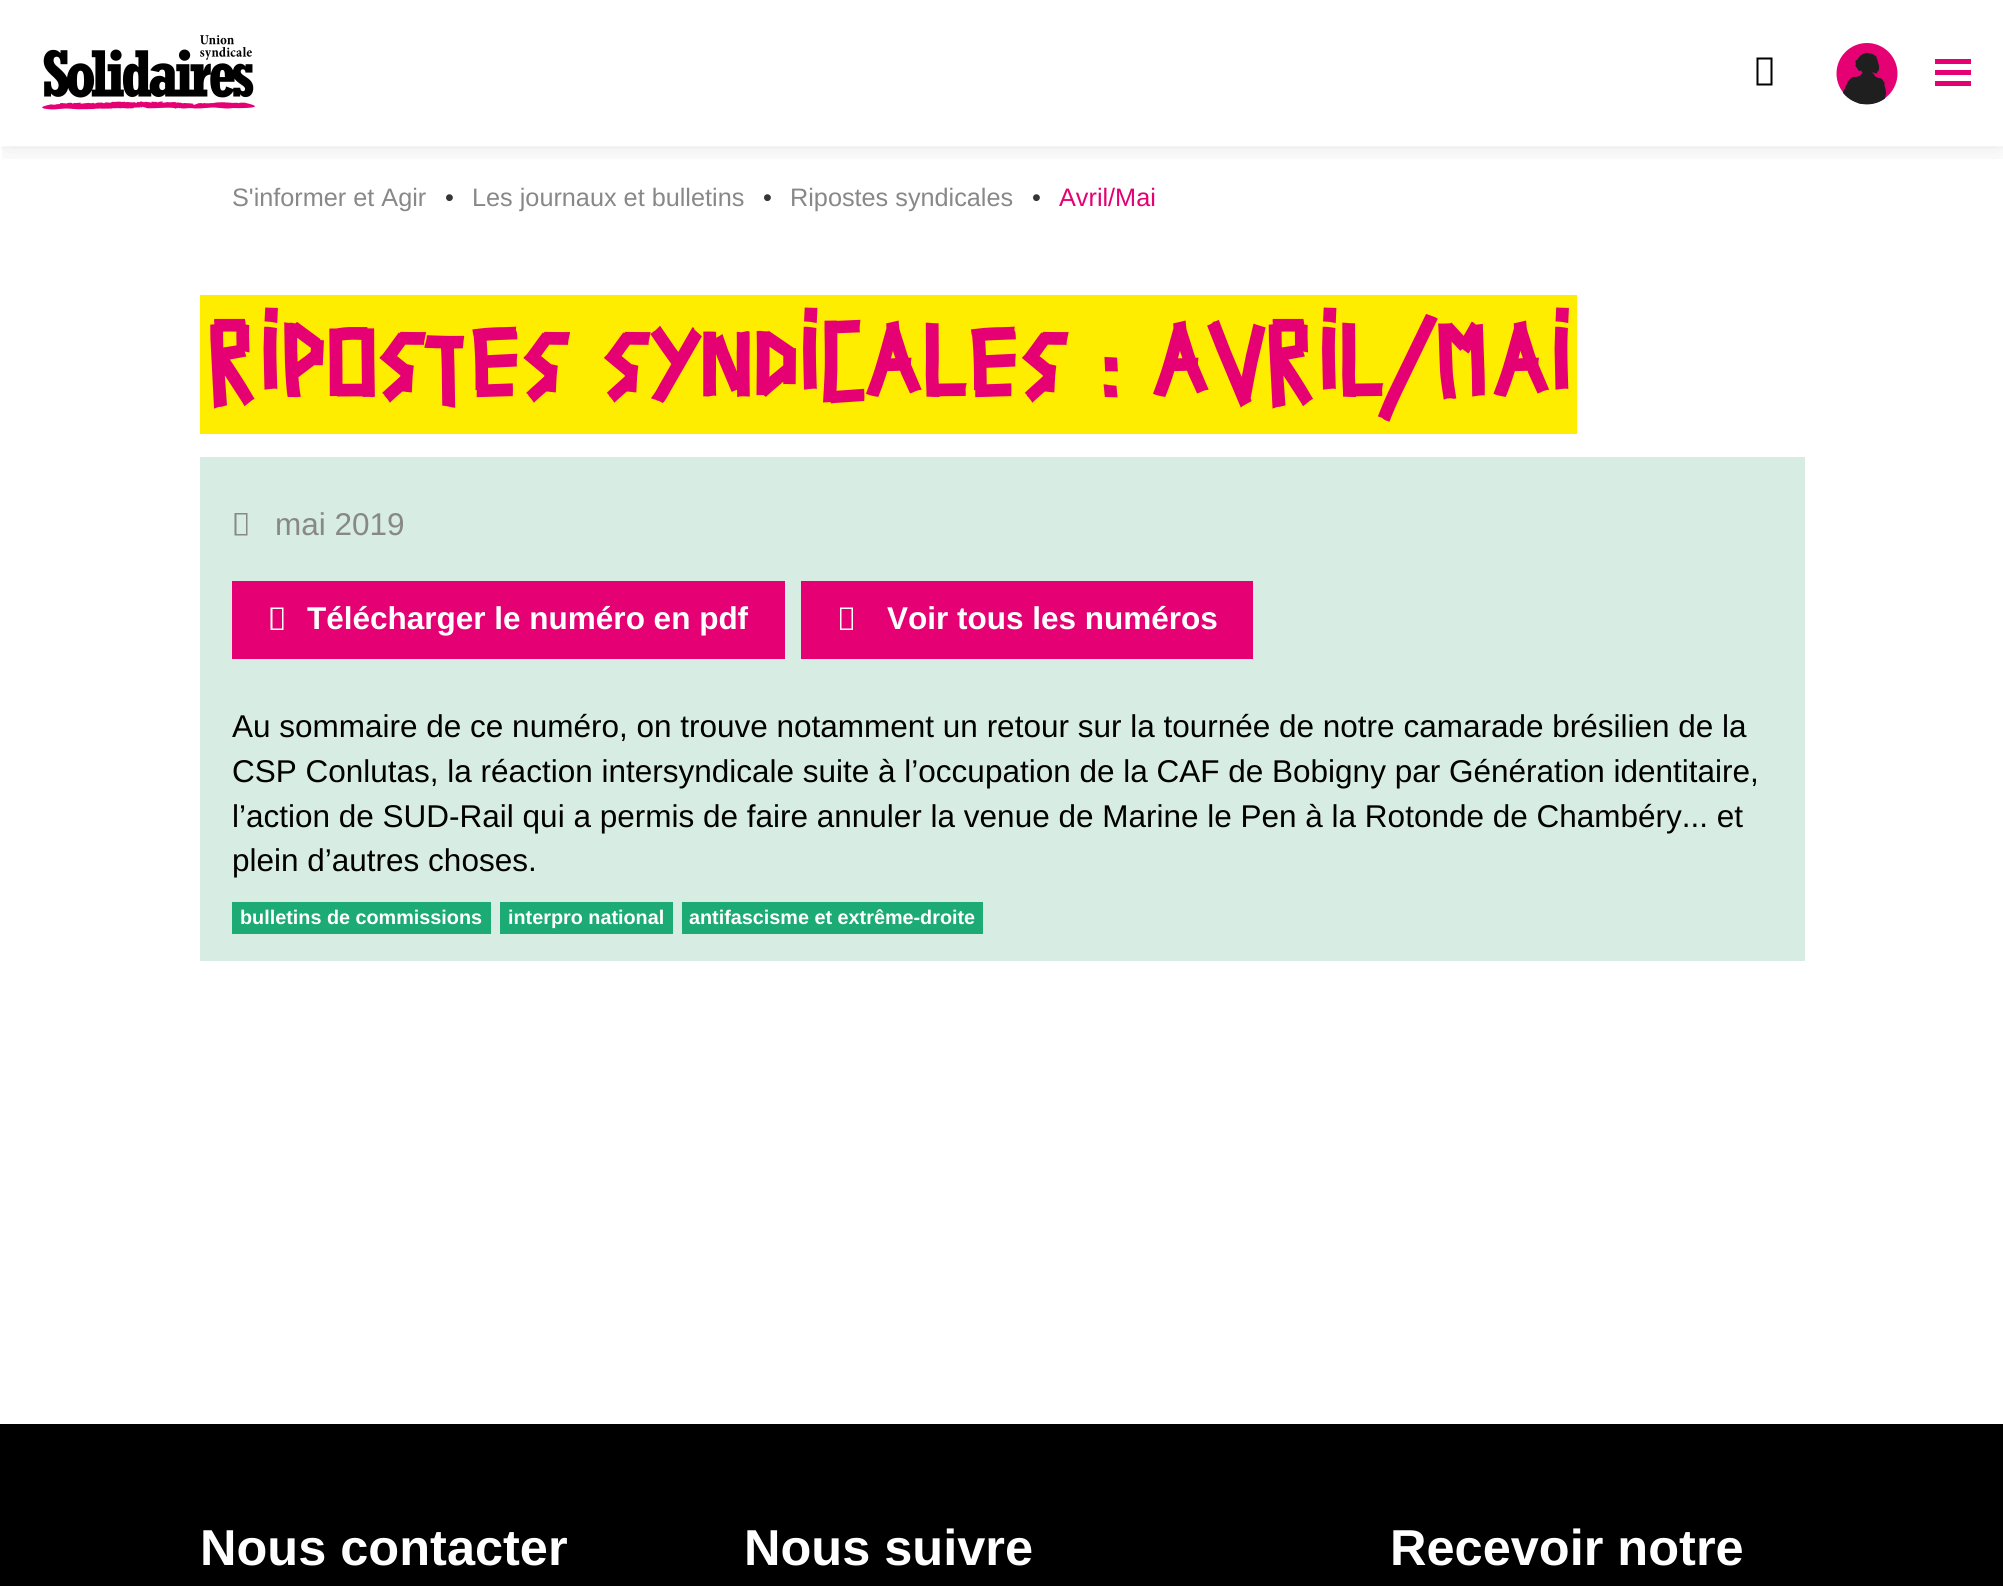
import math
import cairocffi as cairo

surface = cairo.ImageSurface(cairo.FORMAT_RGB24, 2003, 1586)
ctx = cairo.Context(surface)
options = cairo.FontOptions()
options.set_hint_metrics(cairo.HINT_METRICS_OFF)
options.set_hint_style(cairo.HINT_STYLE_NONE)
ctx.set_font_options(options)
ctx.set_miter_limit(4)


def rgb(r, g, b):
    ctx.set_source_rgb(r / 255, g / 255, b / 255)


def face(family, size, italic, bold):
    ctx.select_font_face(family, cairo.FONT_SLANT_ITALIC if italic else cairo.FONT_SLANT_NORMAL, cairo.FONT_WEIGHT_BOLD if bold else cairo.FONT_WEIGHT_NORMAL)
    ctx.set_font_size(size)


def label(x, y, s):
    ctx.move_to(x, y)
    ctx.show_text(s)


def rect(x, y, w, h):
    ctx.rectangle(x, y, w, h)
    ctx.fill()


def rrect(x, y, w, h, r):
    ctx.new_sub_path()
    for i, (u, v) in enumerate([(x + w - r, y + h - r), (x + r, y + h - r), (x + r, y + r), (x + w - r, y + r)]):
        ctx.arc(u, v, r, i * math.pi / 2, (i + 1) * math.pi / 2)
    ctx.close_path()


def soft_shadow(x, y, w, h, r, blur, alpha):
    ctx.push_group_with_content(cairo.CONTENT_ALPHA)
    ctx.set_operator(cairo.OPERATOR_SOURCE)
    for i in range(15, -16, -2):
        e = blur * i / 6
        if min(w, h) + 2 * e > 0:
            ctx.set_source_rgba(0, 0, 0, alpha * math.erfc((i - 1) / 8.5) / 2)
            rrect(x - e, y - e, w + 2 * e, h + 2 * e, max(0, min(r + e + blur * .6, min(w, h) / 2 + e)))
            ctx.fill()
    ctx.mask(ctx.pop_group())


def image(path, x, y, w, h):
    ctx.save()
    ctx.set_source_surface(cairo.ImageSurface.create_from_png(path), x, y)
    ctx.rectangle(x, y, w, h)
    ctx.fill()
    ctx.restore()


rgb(255, 255, 255)
ctx.paint()
ctx.rectangle(-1, -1, 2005, 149)
rgb(252, 252, 252)
ctx.stroke()
ctx.save()
ctx.rectangle(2, 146, 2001, 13)
ctx.clip()
rgb(0, 0, 0)
soft_shadow(5, 7, 1995, 139, 0, 16, 0.1)
ctx.restore()
image('image0.png', 42, 35, 213, 75)
rgb(0, 0, 0)
ctx.new_path()
ctx.move_to(1756.5, 85.5)
ctx.line_to(1756.5, 57.5)
ctx.line_to(1772.5, 57.5)
ctx.line_to(1772.5, 85.5)
ctx.close_path()
ctx.move_to(1758.5, 83.5)
ctx.line_to(1770.5, 83.5)
ctx.line_to(1770.5, 59.5)
ctx.line_to(1758.5, 59.5)
ctx.close_path()
ctx.fill()
image('image1.png', 1836, 43, 62, 62)
rgb(229, 0, 115)
rect(1935, 59, 36, 5)
rect(1935, 70, 36, 5)
rect(1935, 81, 36, 5)
face('Liberation Sans', 25.25, 0, 0)
rgb(136, 136, 136)
label(232, 206, 'S\'informer et Agir')
rgb(54, 54, 54)
label(445, 206, '•')
rgb(136, 136, 136)
label(472, 206, 'Les journaux et bulletins')
rgb(54, 54, 54)
label(763, 206, '•')
rgb(136, 136, 136)
label(790, 206, 'Ripostes syndicales')
rgb(54, 54, 54)
label(1032, 206, '•')
rgb(229, 0, 115)
label(1059, 206, 'Avril/Mai')
rgb(255, 237, 0)
rect(200, 295, 1377, 139)
face('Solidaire', 94.5, 0, 0)
rgb(229, 0, 115)
label(207, 397, 'RIPOSTES SYNDICALES : AVRIL/MAI')
rgb(215, 236, 227)
rect(200, 457, 1605, 504)
rgb(136, 136, 136)
ctx.new_path()
ctx.move_to(234.5, 535.5)
ctx.line_to(234.5, 513)
ctx.line_to(247.5, 513)
ctx.line_to(247.5, 535.5)
ctx.close_path()
ctx.move_to(236.5, 534)
ctx.line_to(246, 534)
ctx.line_to(246, 514.5)
ctx.line_to(236.5, 514.5)
ctx.close_path()
ctx.fill()
face('Liberation Sans', 31.5, 0, 0)
label(275, 535, 'mai 2019')
rgb(229, 0, 115)
rect(232, 581, 553, 78)
rgb(255, 255, 255)
ctx.new_path()
ctx.move_to(270.5, 630)
ctx.line_to(270.5, 607.5)
ctx.line_to(283.5, 607.5)
ctx.line_to(283.5, 630)
ctx.close_path()
ctx.move_to(272.5, 628.5)
ctx.line_to(282, 628.5)
ctx.line_to(282, 609)
ctx.line_to(272.5, 609)
ctx.close_path()
ctx.fill()
face('Liberation Sans', 31.5, 0, 1)
label(307, 629, 'Télécharger le numéro en pdf')
rgb(229, 0, 115)
rect(801, 581, 452, 78)
rgb(255, 255, 255)
ctx.new_path()
ctx.move_to(840, 630)
ctx.line_to(840, 607.5)
ctx.line_to(853, 607.5)
ctx.line_to(853, 630)
ctx.close_path()
ctx.move_to(841.5, 628.5)
ctx.line_to(851.5, 628.5)
ctx.line_to(851.5, 609)
ctx.line_to(841.5, 609)
ctx.close_path()
ctx.fill()
label(887, 629, 'Voir tous les numéros')
face('Liberation Sans', 31.5, 0, 0)
rgb(0, 0, 0)
label(232, 737, 'Au sommaire de ce numéro, on trouve notamment un retour sur la tournée de notre camarade brésilien de la')
label(232, 782, 'CSP Conlutas, la réaction intersyndicale suite à l’occupation de la CAF de Bobigny par Génération identitaire,')
label(232, 827, 'l’action de SUD-Rail qui a permis de faire annuler la venue de Marine le Pen à la Rotonde de Chambéry... et')
label(232, 871, 'plein d’autres choses.')
rgb(28, 171, 116)
rect(232, 902, 259, 32)
face('Liberation Sans', 19.8, 0, 1)
rgb(255, 255, 255)
label(240, 924, 'bulletins de commissions')
rgb(28, 171, 116)
rect(500, 902, 173, 32)
rgb(255, 255, 255)
label(508, 924, 'interpro national')
rgb(28, 171, 116)
rect(682, 902, 301, 32)
rgb(255, 255, 255)
label(689, 924, 'antifascisme et extrême-droite')
rgb(0, 0, 0)
rect(0, 1424, 2003, 162)
face('Liberation Sans', 50.5, 0, 1)
rgb(255, 255, 255)
label(200, 1565, 'Nous contacter')
label(744, 1565, 'Nous suivre')
label(1390, 1565, 'Recevoir notre')
surface.write_to_png('render.png')
